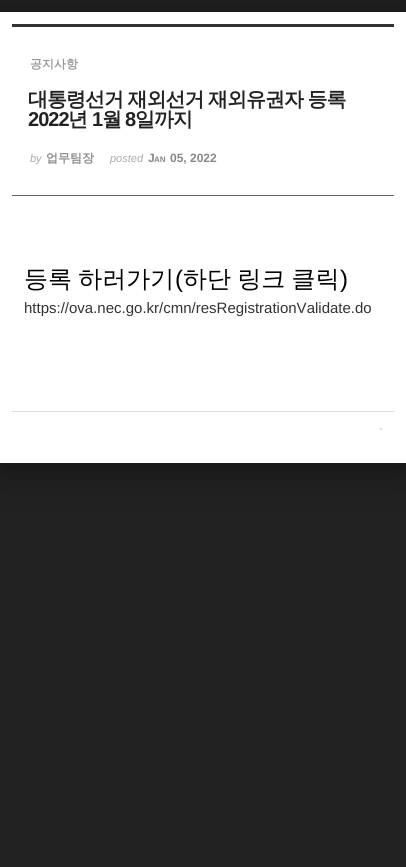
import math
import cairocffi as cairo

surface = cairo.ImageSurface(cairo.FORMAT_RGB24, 406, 867)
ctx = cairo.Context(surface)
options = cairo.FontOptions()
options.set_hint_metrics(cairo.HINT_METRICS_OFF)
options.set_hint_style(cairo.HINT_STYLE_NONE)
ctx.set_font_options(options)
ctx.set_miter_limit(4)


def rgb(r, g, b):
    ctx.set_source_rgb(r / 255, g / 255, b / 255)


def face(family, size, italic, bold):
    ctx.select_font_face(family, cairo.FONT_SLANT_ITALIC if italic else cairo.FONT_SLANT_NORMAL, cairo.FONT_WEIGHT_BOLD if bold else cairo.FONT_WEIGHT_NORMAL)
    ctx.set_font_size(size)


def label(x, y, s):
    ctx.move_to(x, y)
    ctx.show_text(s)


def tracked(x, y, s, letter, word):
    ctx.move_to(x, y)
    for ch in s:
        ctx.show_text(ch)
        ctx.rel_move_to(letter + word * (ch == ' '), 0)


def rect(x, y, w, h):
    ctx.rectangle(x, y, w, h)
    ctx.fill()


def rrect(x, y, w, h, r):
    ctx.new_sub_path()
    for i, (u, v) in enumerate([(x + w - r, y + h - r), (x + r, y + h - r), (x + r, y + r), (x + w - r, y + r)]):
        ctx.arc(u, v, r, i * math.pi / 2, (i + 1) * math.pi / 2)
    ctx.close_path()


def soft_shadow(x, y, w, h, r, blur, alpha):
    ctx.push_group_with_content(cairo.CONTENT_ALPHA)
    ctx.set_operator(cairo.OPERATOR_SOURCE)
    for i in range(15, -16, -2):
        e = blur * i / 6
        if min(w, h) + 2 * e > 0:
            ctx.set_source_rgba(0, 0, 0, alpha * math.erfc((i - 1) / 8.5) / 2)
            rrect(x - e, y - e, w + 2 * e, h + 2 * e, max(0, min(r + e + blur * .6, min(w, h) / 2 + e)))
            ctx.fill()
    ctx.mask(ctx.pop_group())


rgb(34, 34, 34)
ctx.paint()
rgb(0, 0, 0)
soft_shadow(0, 16, 406, 451, 0, 24, 0.5)
rgb(255, 255, 255)
rect(0, 12, 406, 451)
rgb(51, 51, 51)
rect(12, 24, 382, 3)
rgb(102, 102, 102)
rect(12, 195, 382, 1)
face('WenQuanYi Zen Hei', 12, 0, 1)
rgb(153, 153, 153)
label(30, 68, '공지사항')
face('WenQuanYi Zen Hei', 20, 0, 1)
rgb(34, 34, 34)
tracked(28, 106, '대통령선거 재외선거 재외유권자 등록', -1, -0.5)
face('Liberation Sans', 20, 0, 1)
tracked(28, 126, '2022', -1, 0)
face('WenQuanYi Zen Hei', 20, 0, 1)
tracked(68, 126, '년', -1, 0)
face('Liberation Sans', 20, 0, 1)
tracked(92, 126, '1', -1, 0)
face('WenQuanYi Zen Hei', 20, 0, 1)
tracked(102, 126, '월', -1, 0)
face('Liberation Sans', 20, 0, 1)
tracked(125, 126, '8', -1, 0)
face('WenQuanYi Zen Hei', 20, 0, 1)
tracked(135, 126, '일까지', -1, 0)
face('Liberation Sans', 11, 1, 0)
rgb(170, 170, 170)
label(30, 162, 'by')
face('WenQuanYi Zen Hei', 12, 0, 1)
rgb(136, 136, 136)
label(46, 162, '업무팀장')
face('Liberation Sans', 11, 1, 0)
rgb(170, 170, 170)
label(110, 162, 'posted')
face('Liberation Sans', 12, 0, 1)
rgb(136, 136, 136)
label(148, 162, 'J')
face('Liberation Sans', 8, 0, 1)
label(154, 162, 'AN')
face('Liberation Sans', 12, 0, 1)
label(170, 162, '05, 2022')
face('WenQuanYi Zen Hei Medium', 24, 0, 0)
rgb(0, 0, 0)
tracked(24, 287, '등록 하러가기', 0, -1)
face('Liberation Sans', 24, 0, 0)
label(175, 287, '(')
face('WenQuanYi Zen Hei Medium', 24, 0, 0)
tracked(183, 287, '하단 링크 클릭', 0, -1)
face('Liberation Sans', 24, 0, 0)
label(340, 287, ')')
face('Liberation Sans', 15, 0, 0)
rgb(51, 51, 51)
label(24, 313, 'https://ova.nec.go.kr/cmn/resRegistrationValidate.do')
rgb(221, 221, 221)
rect(12, 411, 382, 1)
rgb(211, 211, 211)
ctx.new_path()
ctx.arc(381, 429, 1, 0, 2 * math.pi)
ctx.fill()
surface.write_to_png('render.png')
